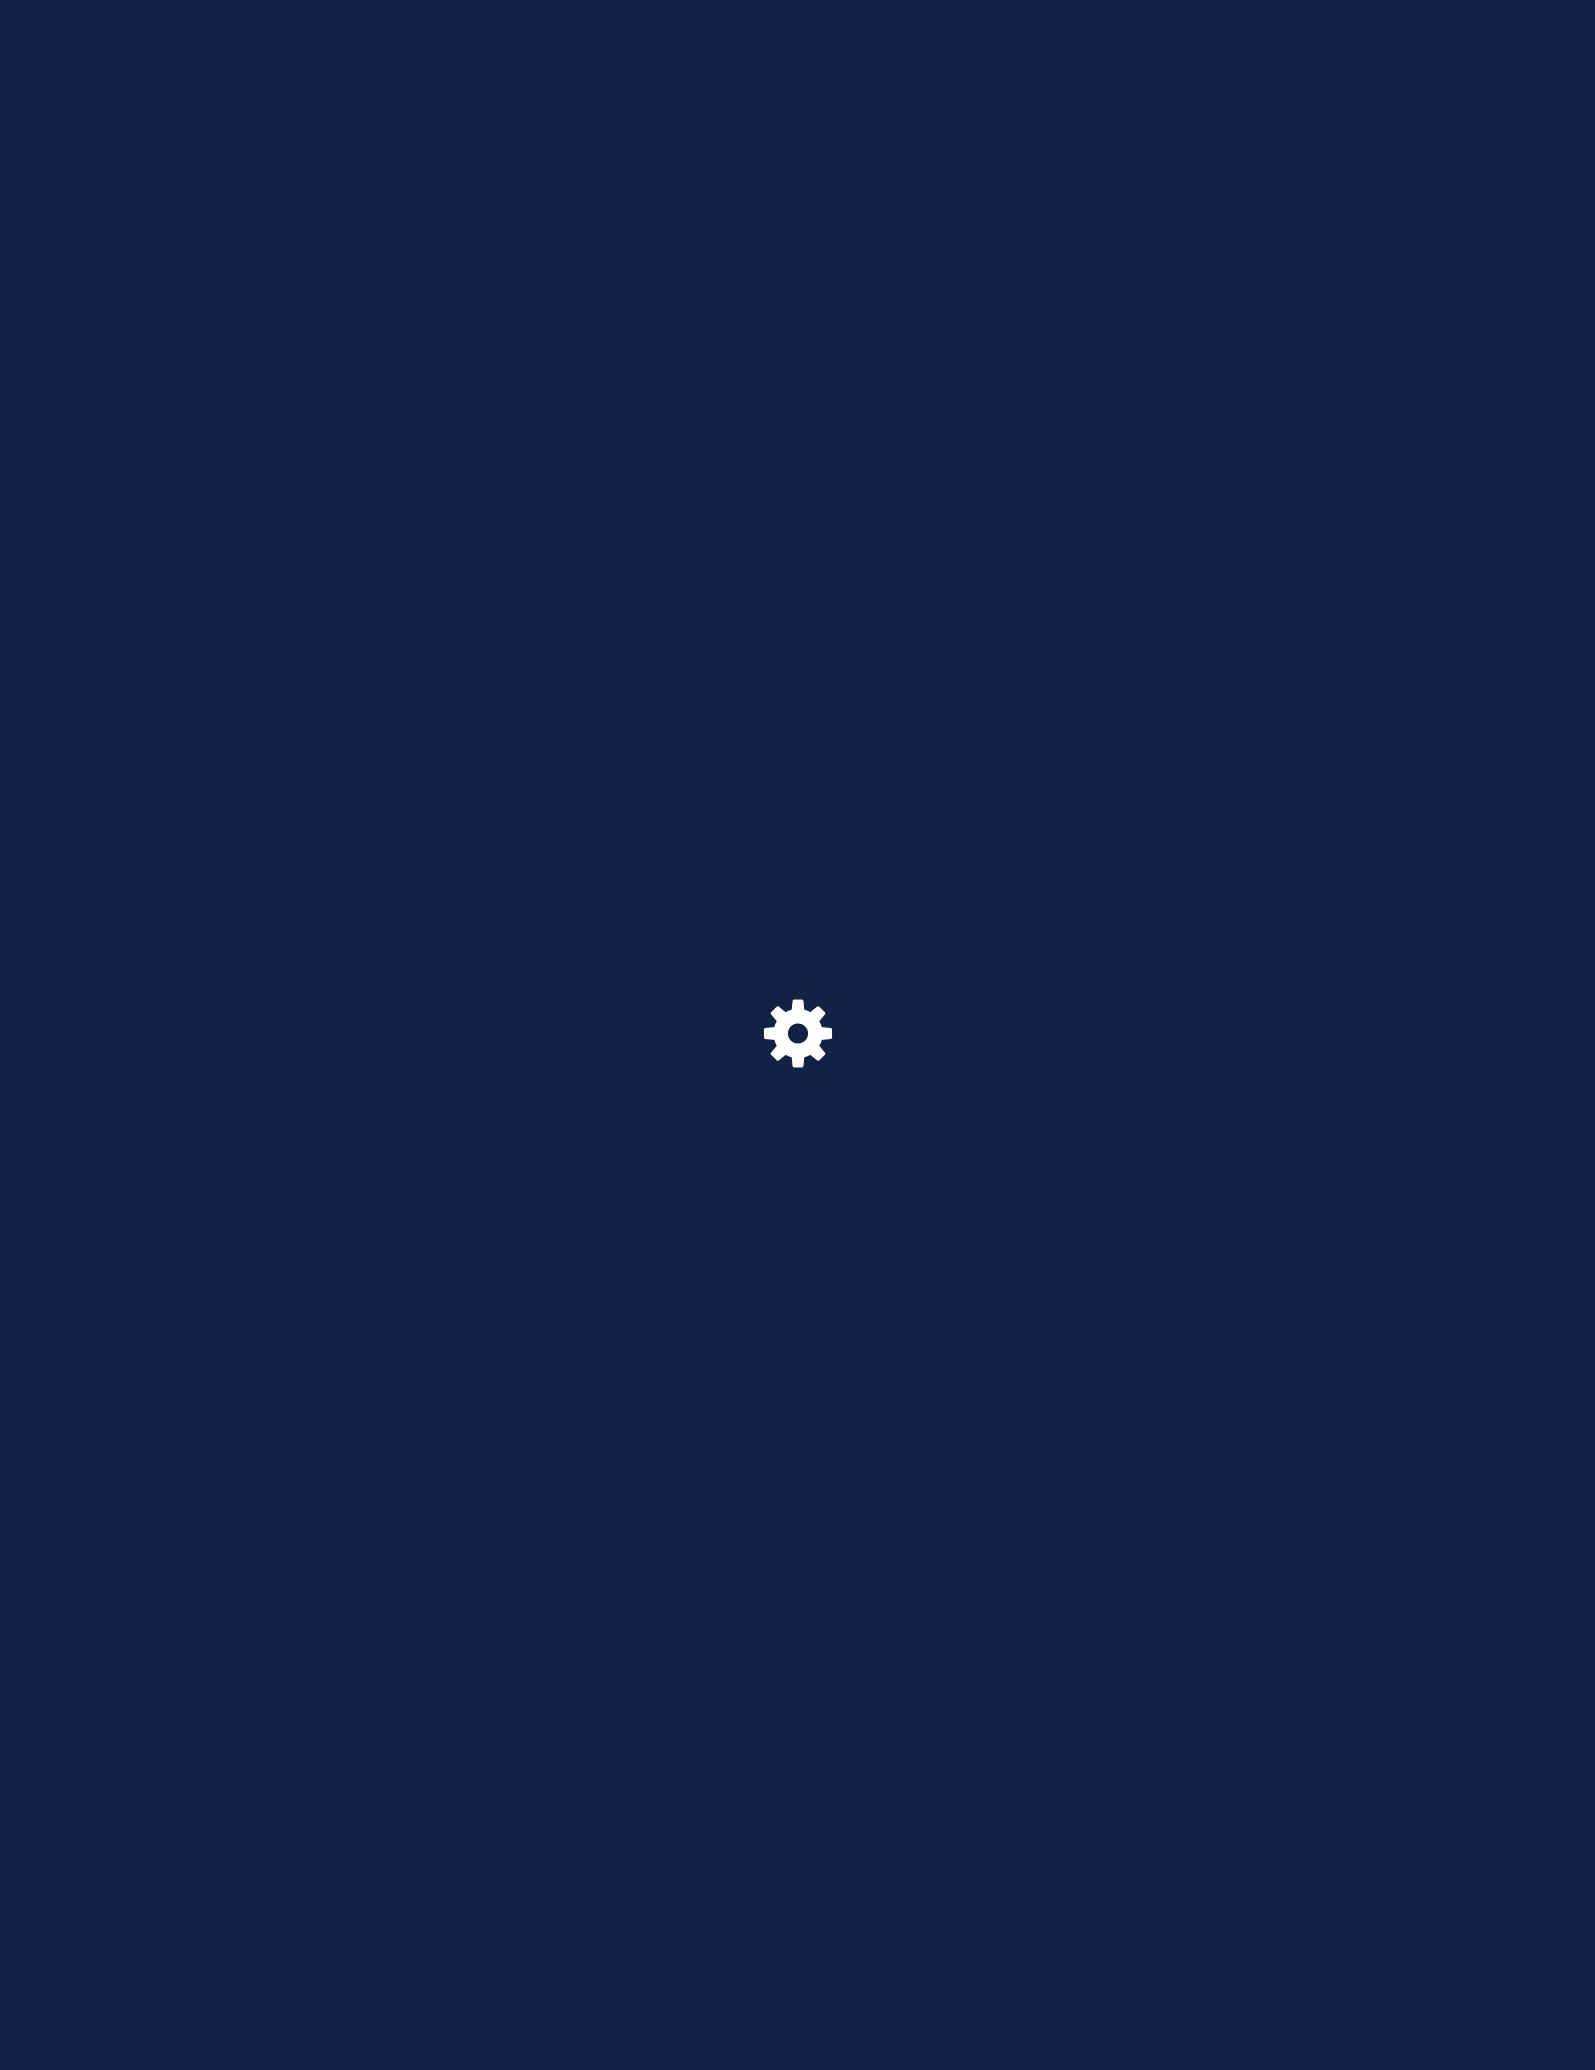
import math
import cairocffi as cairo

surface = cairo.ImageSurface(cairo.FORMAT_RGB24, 1595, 2070)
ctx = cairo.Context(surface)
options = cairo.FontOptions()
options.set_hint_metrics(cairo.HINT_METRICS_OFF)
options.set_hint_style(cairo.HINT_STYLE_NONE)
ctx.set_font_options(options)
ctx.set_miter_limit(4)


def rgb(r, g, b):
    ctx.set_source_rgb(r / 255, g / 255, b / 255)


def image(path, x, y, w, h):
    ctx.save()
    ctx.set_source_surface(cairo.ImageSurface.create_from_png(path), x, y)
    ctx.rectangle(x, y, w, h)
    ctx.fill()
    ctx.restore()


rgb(17, 34, 68)
ctx.paint()
image('image0.png', 763, 999, 70, 69)
surface.write_to_png('render.png')
